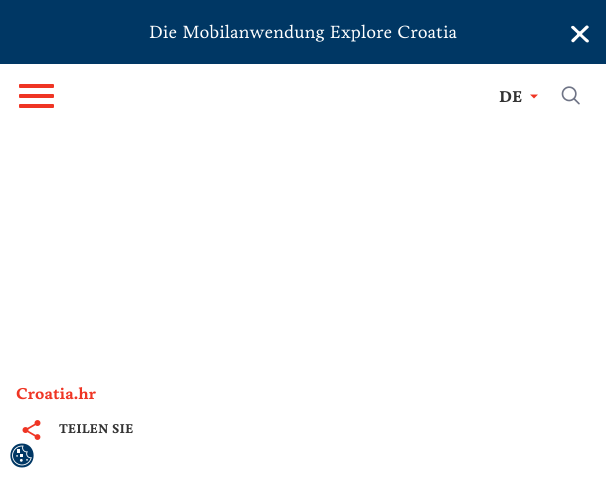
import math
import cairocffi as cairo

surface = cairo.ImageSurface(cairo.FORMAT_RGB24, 606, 478)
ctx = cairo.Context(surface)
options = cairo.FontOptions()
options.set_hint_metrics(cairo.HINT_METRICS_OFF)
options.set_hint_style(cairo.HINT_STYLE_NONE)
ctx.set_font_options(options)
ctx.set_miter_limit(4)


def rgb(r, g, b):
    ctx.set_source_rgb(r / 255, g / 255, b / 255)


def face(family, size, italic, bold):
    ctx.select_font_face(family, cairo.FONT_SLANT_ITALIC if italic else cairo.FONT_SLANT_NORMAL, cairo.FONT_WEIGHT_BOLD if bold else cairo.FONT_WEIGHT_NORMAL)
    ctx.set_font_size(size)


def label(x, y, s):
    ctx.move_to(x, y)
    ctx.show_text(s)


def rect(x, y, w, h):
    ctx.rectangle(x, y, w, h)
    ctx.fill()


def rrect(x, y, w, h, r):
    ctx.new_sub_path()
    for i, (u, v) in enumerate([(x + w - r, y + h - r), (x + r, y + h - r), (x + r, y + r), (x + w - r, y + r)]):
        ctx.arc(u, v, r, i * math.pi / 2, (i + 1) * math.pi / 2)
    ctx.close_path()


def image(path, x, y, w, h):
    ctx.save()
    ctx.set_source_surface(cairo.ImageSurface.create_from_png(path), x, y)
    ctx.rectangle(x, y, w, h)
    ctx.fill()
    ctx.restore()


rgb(255, 255, 255)
ctx.paint()
rgb(0, 55, 100)
rect(0, 0, 606, 64)
face('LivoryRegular', 18, 0, 0)
rgb(255, 255, 255)
label(149, 38, 'Die Mobilanwendung Explore Croatia')
face('LivoryRegular', 60, 0, 0)
label(562, 51, '×')
rgb(239, 53, 36)
rrect(19, 94, 35, 4, 1)
ctx.fill()
rrect(19, 84, 35, 4, 1)
ctx.fill()
rrect(19, 104, 35, 4, 1)
ctx.fill()
face('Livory', 16, 0, 1)
rgb(51, 51, 51)
label(499, 102, 'DE')
rgb(239, 53, 36)
ctx.new_path()
ctx.move_to(530, 94.5)
ctx.line_to(538, 94.5)
ctx.line_to(534, 98.5)
ctx.close_path()
ctx.fill()
image('image0.png', 561, 86, 19, 19)
label(16, 399, 'Croatia.hr')
image('image1.png', 22, 420, 19, 20)
face('Livory', 13, 0, 1)
rgb(51, 51, 51)
label(59, 433, 'TEILEN SIE')
rgb(0, 55, 100)
ctx.new_path()
ctx.move_to(22, 443.5)
ctx.curve_to(37.5, 443.5, 37.5, 467.5, 22, 467.5)
ctx.curve_to(6.5, 467.5, 6.5, 443.5, 22, 443.5)
ctx.close_path()
ctx.fill()
image('image2.png', 12, 445, 20, 21)
rgb(255, 255, 255)
rect(17, 449, 3, 4)
image('image3.png', 16, 455, 2, 2)
rect(20, 454, 3, 3)
image('image4.png', 19, 458, 4, 4)
image('image5.png', 26, 459, 2, 2)
surface.write_to_png('render.png')
